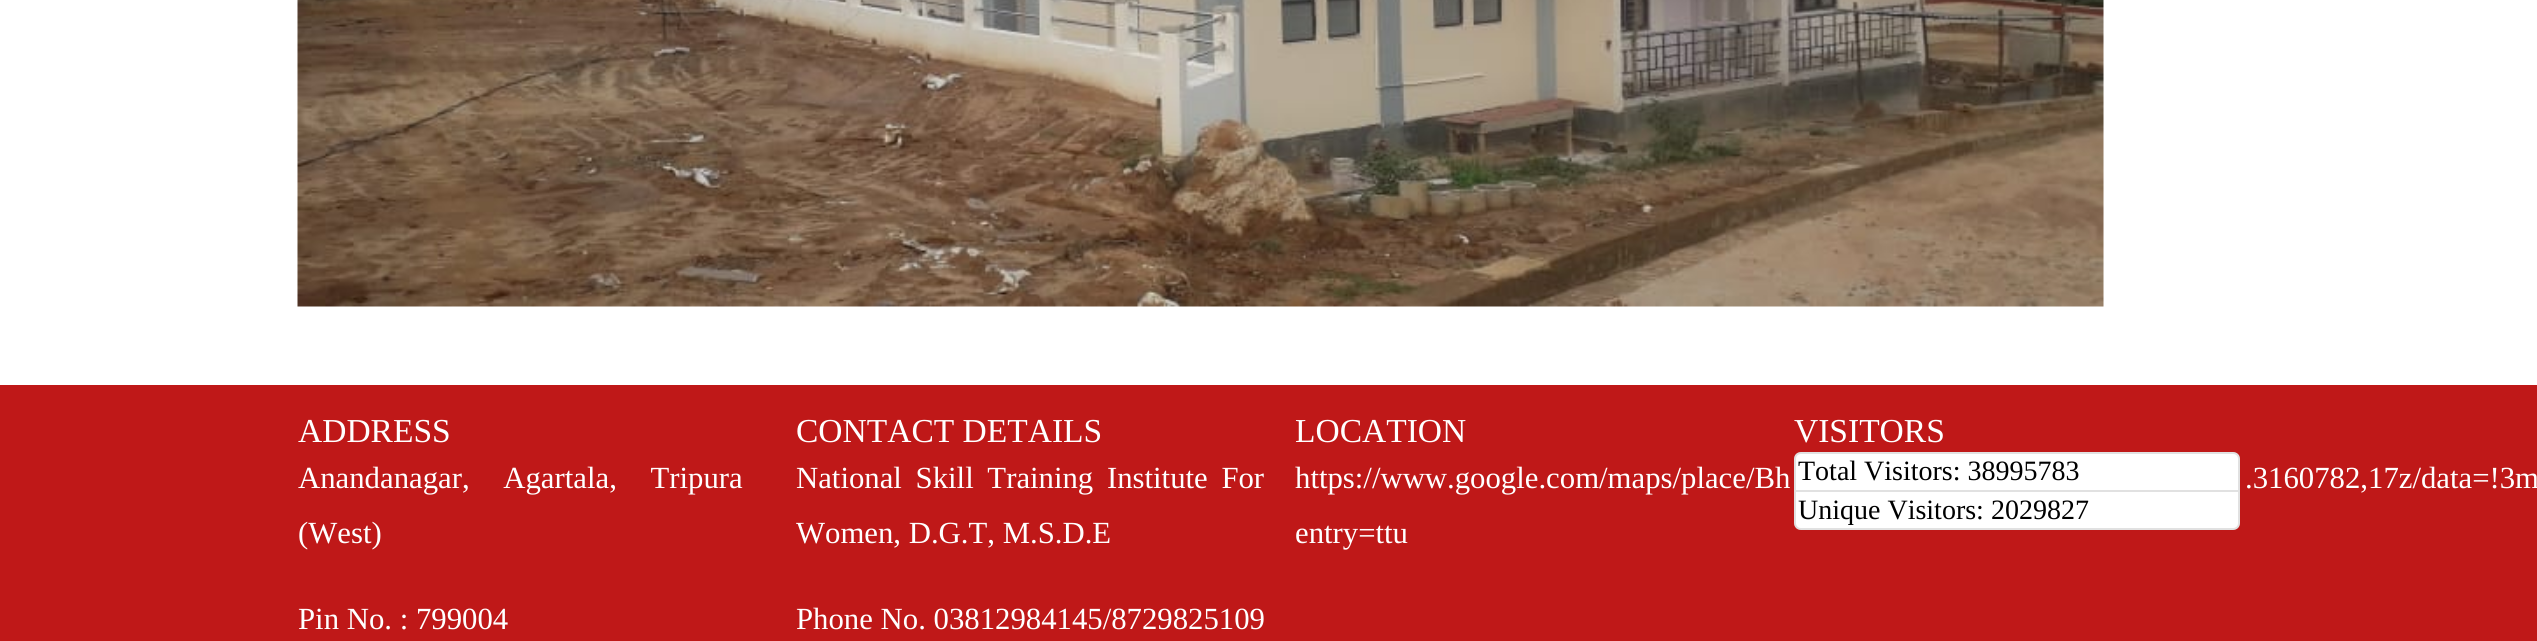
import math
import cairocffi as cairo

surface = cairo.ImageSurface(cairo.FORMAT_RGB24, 2537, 641)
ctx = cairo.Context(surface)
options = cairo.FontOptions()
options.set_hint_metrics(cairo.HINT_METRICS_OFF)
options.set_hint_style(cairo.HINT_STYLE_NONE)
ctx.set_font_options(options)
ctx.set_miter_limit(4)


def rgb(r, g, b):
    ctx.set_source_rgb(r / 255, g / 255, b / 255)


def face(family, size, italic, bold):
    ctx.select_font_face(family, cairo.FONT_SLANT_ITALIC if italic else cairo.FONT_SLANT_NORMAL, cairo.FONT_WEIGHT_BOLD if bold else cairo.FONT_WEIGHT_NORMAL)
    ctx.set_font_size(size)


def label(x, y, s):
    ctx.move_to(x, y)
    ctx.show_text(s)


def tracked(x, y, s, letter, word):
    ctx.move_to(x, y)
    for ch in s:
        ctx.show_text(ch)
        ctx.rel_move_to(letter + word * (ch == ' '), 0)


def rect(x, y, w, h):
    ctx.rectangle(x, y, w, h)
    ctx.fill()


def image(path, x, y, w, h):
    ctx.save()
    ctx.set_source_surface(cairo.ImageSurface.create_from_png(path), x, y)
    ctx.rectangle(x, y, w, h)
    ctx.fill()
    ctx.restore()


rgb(255, 255, 255)
ctx.paint()
image('image0.png', 297, 0, 1807, 307)
rgb(191, 24, 24)
rect(0, 385, 2537, 256)
face('Liberation Serif', 33.5, 0, 0)
rgb(255, 255, 255)
label(298, 442, 'ADDRESS')
face('Liberation Serif', 30.75, 0, 0)
tracked(298, 488, 'Anandanagar, Agartala, Tripura', 0, 26)
label(298, 543, '(West)')
label(298, 629, 'Pin No. : 799004')
face('Liberation Serif', 33.5, 0, 0)
label(796, 442, 'CONTACT DETAILS')
face('Liberation Serif', 30.75, 0, 0)
tracked(796, 488, 'National Skill Training Institute For', 0, 6)
label(796, 543, 'Women, D.G.T, M.S.D.E')
label(796, 629, 'Phone No. 03812984145/8729825109')
face('Liberation Serif', 33.5, 0, 0)
label(1295, 442, 'LOCATION')
face('Liberation Serif', 30.75, 0, 0)
label(1295, 488, 'https://www.google.com/maps/place/Bh')
label(2245, 488, '.3160782,17z/data=!3m')
label(1295, 543, 'entry=ttu')
face('Liberation Serif', 33.5, 0, 0)
label(1794, 442, 'VISITORS')
ctx.new_path()
ctx.move_to(1801, 452)
ctx.line_to(2233, 452)
ctx.curve_to(2237, 452, 2240, 455, 2240, 459)
ctx.line_to(2240, 492)
ctx.line_to(1794, 492)
ctx.line_to(1794, 459)
ctx.curve_to(1794, 455, 1797, 452, 1801, 452)
ctx.close_path()
ctx.fill()
ctx.new_path()
ctx.move_to(1801, 453)
ctx.line_to(2233, 453)
ctx.curve_to(2236.5, 453, 2239, 455.5, 2239, 459)
ctx.line_to(2239, 491)
ctx.line_to(1795, 491)
ctx.line_to(1795, 459)
ctx.curve_to(1795, 455.5, 1797.5, 453, 1801, 453)
ctx.close_path()
ctx.set_source_rgba(0, 0, 0, 0.12)
ctx.stroke()
face('Liberation Serif', 28, 0, 0)
rgb(0, 0, 0)
label(1798, 480, 'Total Visitors: 38995783')
rgb(255, 255, 255)
ctx.new_path()
ctx.move_to(1794, 492)
ctx.line_to(2240, 492)
ctx.line_to(2240, 523)
ctx.curve_to(2240, 527, 2237, 530, 2233, 530)
ctx.line_to(1801, 530)
ctx.curve_to(1797, 530, 1794, 527, 1794, 523)
ctx.close_path()
ctx.fill()
ctx.set_source_rgba(0, 0, 0, 0.12)
ctx.set_fill_rule(cairo.FILL_RULE_EVEN_ODD)
ctx.new_path()
ctx.move_to(1794, 492)
ctx.line_to(2240, 492)
ctx.line_to(2240, 523)
ctx.curve_to(2240, 527, 2237, 530, 2233, 530)
ctx.line_to(1801, 530)
ctx.curve_to(1797, 530, 1794, 527, 1794, 523)
ctx.close_path()
ctx.move_to(1796, 492)
ctx.line_to(2238, 492)
ctx.line_to(2238, 523)
ctx.curve_to(2238, 526, 2236, 528, 2233, 528)
ctx.line_to(1801, 528)
ctx.curve_to(1798, 528, 1796, 526, 1796, 523)
ctx.close_path()
ctx.fill()
rgb(0, 0, 0)
label(1798, 519, 'Unique Visitors: 2029827')
surface.write_to_png('render.png')
